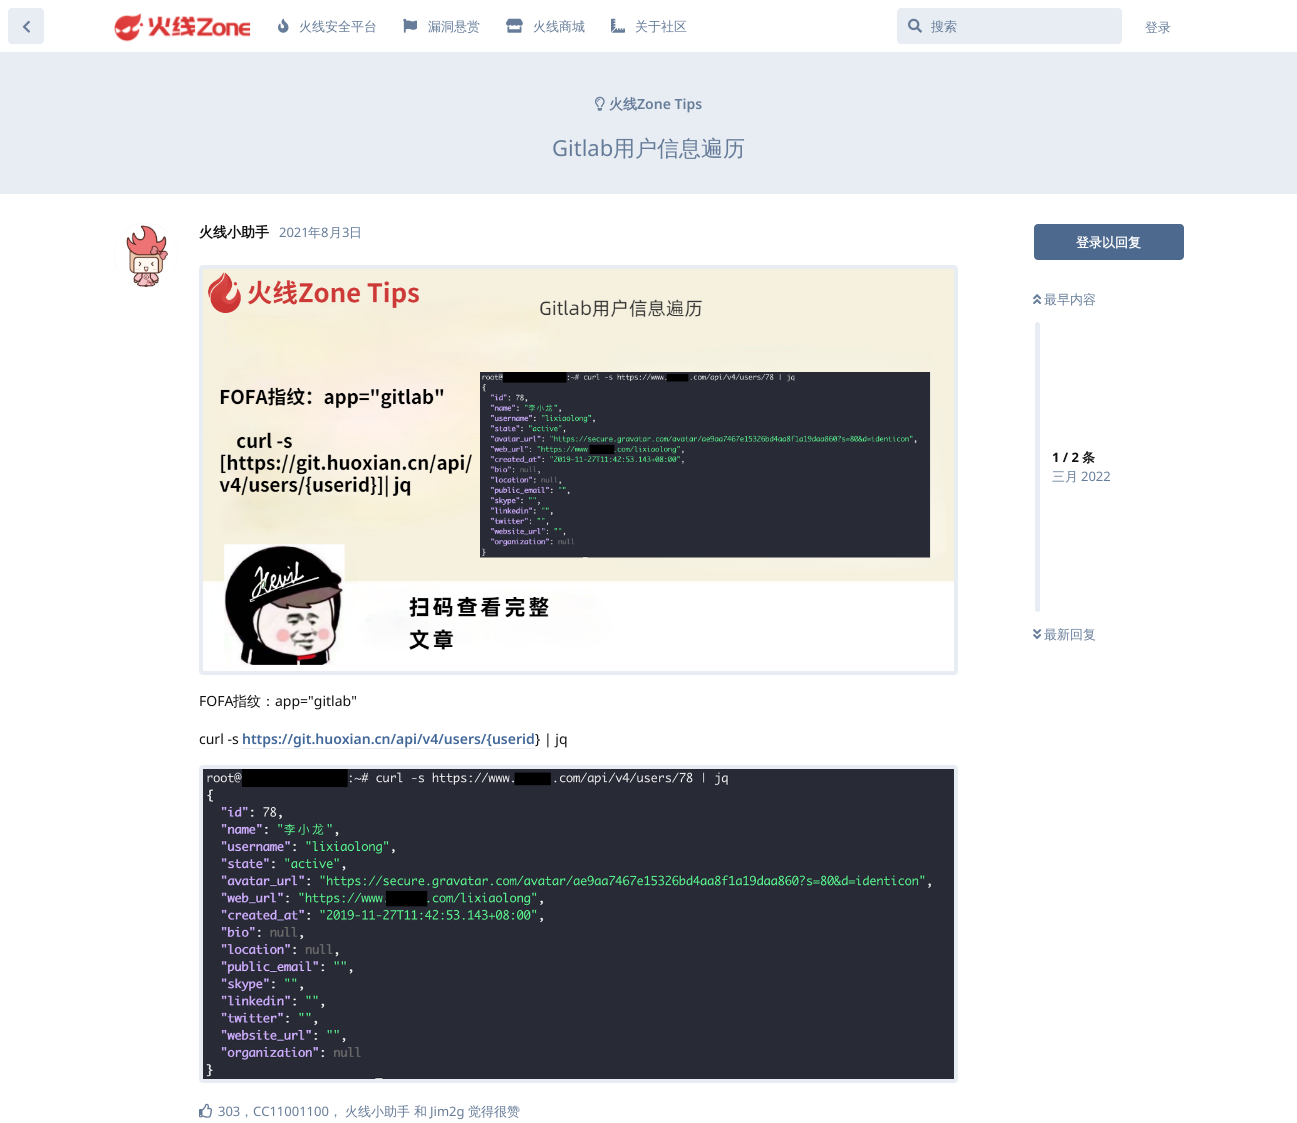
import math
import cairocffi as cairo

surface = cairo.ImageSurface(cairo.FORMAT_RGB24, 1297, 1123)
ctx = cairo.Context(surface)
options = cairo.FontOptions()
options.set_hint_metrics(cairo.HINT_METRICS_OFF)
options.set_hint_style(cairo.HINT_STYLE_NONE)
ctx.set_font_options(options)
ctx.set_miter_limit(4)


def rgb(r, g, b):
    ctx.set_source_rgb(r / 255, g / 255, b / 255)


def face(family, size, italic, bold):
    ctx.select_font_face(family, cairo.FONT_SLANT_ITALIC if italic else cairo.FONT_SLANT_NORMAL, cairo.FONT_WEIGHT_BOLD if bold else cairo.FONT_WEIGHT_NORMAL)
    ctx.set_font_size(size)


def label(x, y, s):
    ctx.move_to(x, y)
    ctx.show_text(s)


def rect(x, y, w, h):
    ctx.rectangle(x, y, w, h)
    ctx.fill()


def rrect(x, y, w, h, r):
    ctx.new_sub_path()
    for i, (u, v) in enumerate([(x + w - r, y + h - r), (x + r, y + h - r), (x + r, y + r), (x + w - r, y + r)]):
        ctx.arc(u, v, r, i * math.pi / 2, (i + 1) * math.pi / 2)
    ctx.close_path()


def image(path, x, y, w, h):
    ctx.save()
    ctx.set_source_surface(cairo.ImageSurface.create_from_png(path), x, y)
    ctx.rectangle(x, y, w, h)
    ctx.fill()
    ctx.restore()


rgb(255, 255, 255)
ctx.paint()
rgb(232, 236, 243)
rrect(8, 8, 36, 36, 4)
ctx.fill()
image('image0.png', 22, 20, 8, 13)
image('image1.png', 114, 13, 137, 29)
image('image2.png', 278, 18, 11, 15)
face('WenQuanYi Zen Hei Medium', 13, 0, 0)
rgb(102, 124, 153)
label(299, 31, '火线安全平台')
image('image3.png', 403, 18, 14, 15)
label(428, 31, '漏洞悬赏')
image('image4.png', 506, 18, 17, 15)
label(533, 31, '火线商城')
image('image5.png', 611, 18, 14, 15)
label(635, 31, '关于社区')
rgb(232, 236, 243)
rrect(897, 8, 225, 36, 4)
ctx.fill()
image('image6.png', 908, 18, 14, 15)
rgb(102, 124, 153)
label(931, 31, '搜索')
label(1145, 32, '登录')
rgb(232, 236, 243)
rect(0, 52, 1297, 142)
image('image7.png', 595, 96, 10, 15)
face('WenQuanYi Zen Hei', 14, 0, 1)
rgb(102, 124, 153)
label(609, 109, '火线')
face('Noto Sans SemiBold', 14, 0, 0)
label(637, 109, 'Zone Tips')
face('Noto Sans', 22, 0, 0)
label(552, 156, 'Gitlab')
face('WenQuanYi Zen Hei Medium', 22, 0, 0)
label(613, 156, '用户信息遍历')
rgb(232, 236, 243)
ctx.new_path()
ctx.arc(146, 255, 32, 0, 2 * math.pi)
ctx.fill()
image('image8.png', 114, 223, 64, 64)
face('WenQuanYi Zen Hei', 14, 0, 1)
rgb(17, 17, 17)
label(199, 237, '火线小助手')
face('Noto Sans', 13, 0, 0)
rgb(102, 124, 153)
label(279, 237, '2021')
face('WenQuanYi Zen Hei Medium', 13, 0, 0)
label(308, 237, '年')
face('Noto Sans', 13, 0, 0)
label(321, 237, '8')
face('WenQuanYi Zen Hei Medium', 13, 0, 0)
label(329, 237, '月')
face('Noto Sans', 13, 0, 0)
label(342, 237, '3')
face('WenQuanYi Zen Hei Medium', 13, 0, 0)
label(349, 237, '日')
rgb(232, 236, 243)
rrect(199, 265, 759, 410, 4)
ctx.fill()
image('image9.png', 203, 269, 751, 402)
face('Noto Sans', 14, 0, 0)
rgb(17, 17, 17)
label(199, 706, 'FOFA')
face('WenQuanYi Zen Hei Medium', 14, 0, 0)
label(233, 706, '指纹：')
face('Noto Sans', 14, 0, 0)
label(275, 706, 'app="gitlab"')
label(199, 744, 'curl -s')
face('Noto Sans SemiBold', 14, 0, 0)
rgb(66, 103, 153)
label(242, 744, 'https://git.huoxian.cn/api/v4/users/{userid')
rgb(232, 236, 243)
rect(242, 748, 293, 1)
face('Noto Sans', 14, 0, 0)
rgb(17, 17, 17)
label(535, 744, '} | jq')
rgb(232, 236, 243)
rrect(199, 765, 759, 318, 4)
ctx.fill()
image('image10.png', 203, 769, 751, 310)
image('image11.png', 199, 1103, 14, 15)
face('Noto Sans', 13, 0, 0)
rgb(102, 124, 153)
label(218, 1116, '303')
face('WenQuanYi Zen Hei Medium', 13, 0, 0)
label(240, 1116, '，')
face('Noto Sans', 13, 0, 0)
label(253, 1116, 'CC11001100')
face('WenQuanYi Zen Hei Medium', 13, 0, 0)
label(329, 1116, '，')
label(345, 1116, '火线小助手')
label(414, 1116, '和')
face('Noto Sans', 13, 0, 0)
label(430, 1116, 'Jim2g')
face('WenQuanYi Zen Hei Medium', 13, 0, 0)
label(468, 1116, '觉得很赞')
rgb(77, 105, 142)
rrect(1034, 224, 150, 36, 4)
ctx.fill()
face('WenQuanYi Zen Hei', 13, 0, 1)
rgb(255, 255, 255)
label(1076, 247, '登录以回复')
image('image12.png', 1033, 294, 9, 11)
face('WenQuanYi Zen Hei Medium', 13, 0, 0)
rgb(102, 124, 153)
label(1044, 304, '最早内容')
rgb(232, 236, 243)
rrect(1035, 322, 5, 290, 2.5)
ctx.fill()
face('Noto Sans', 13, 0, 1)
rgb(17, 17, 17)
label(1052, 462, '1 / 2')
face('WenQuanYi Zen Hei', 13, 0, 1)
label(1082, 462, '条')
face('WenQuanYi Zen Hei Medium', 13, 0, 0)
rgb(102, 124, 153)
label(1052, 481, '三月')
face('Noto Sans', 13, 0, 0)
label(1081, 481, '2022')
image('image13.png', 1033, 629, 9, 11)
face('WenQuanYi Zen Hei Medium', 13, 0, 0)
label(1044, 639, '最新回复')
surface.write_to_png('render.png')
